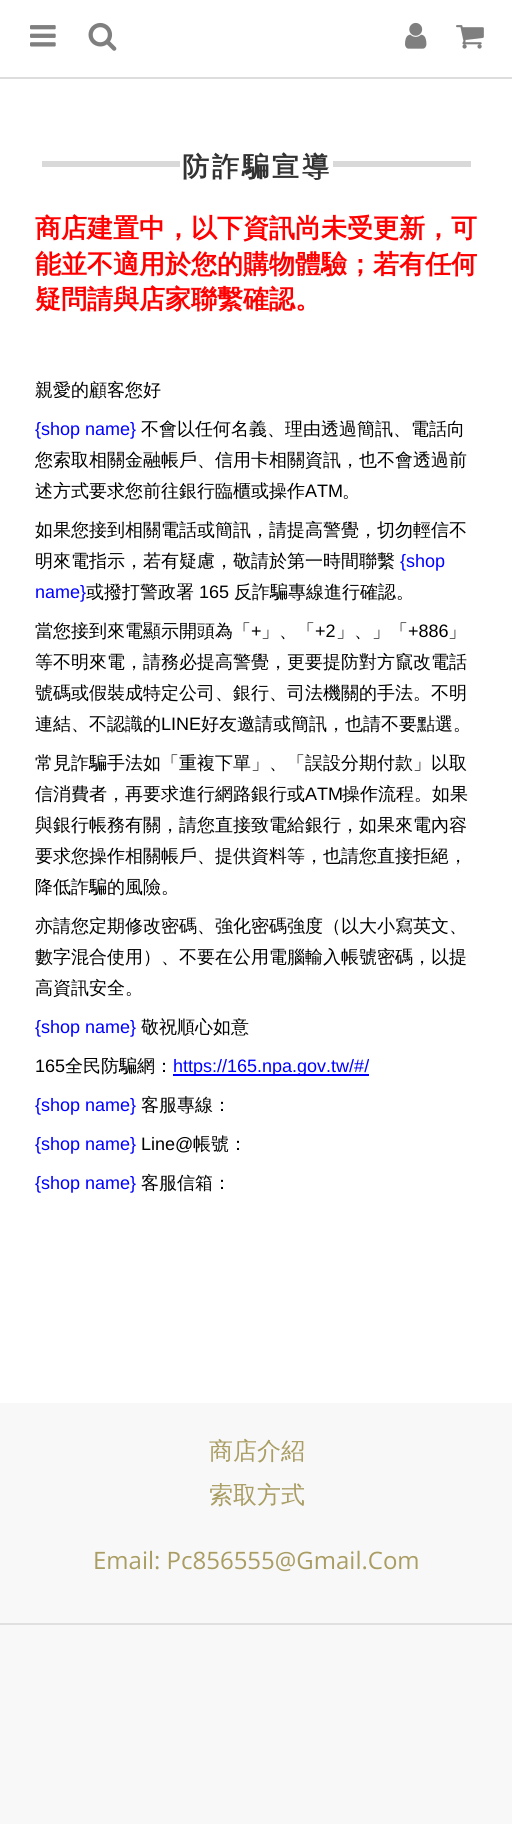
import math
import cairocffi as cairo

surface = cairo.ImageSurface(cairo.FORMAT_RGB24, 512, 1824)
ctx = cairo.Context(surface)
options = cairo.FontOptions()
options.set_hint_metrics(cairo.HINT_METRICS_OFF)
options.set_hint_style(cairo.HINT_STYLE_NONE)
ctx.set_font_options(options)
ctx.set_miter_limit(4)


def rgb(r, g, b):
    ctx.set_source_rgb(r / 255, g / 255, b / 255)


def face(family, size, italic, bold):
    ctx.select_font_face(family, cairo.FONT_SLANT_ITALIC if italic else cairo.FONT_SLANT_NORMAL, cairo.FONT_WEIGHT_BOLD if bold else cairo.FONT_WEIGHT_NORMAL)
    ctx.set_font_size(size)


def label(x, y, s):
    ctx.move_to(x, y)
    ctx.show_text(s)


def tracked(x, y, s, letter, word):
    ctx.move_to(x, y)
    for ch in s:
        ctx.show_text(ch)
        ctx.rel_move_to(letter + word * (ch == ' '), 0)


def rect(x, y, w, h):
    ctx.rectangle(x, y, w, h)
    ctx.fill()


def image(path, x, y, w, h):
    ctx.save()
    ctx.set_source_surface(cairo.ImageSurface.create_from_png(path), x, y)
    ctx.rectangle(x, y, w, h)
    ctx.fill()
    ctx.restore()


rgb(255, 255, 255)
ctx.paint()
rgb(221, 221, 221)
rect(0, 77, 512, 2)
image('image0.png', 30, 25, 26, 22)
image('image1.png', 88, 22, 29, 29)
image('image2.png', 405, 22, 22, 27)
image('image3.png', 456, 25, 28, 24)
rgb(217, 217, 217)
rect(42, 161, 138, 6)
face('WenQuanYi Zen Hei', 27, 0, 1)
rgb(51, 51, 51)
tracked(182, 176, '防詐騙宣導', 3, 0)
rgb(217, 217, 217)
rect(333, 161, 138, 6)
face('WenQuanYi Zen Hei', 26, 0, 1)
rgb(255, 0, 0)
label(35, 237, '商店建置中，以下資訊尚未受更新，可')
label(35, 273, '能並不適用於您的購物體驗；若有任何')
label(35, 308, '疑問請與店家聯繫確認。')
face('WenQuanYi Zen Hei Medium', 18, 0, 0)
rgb(0, 0, 0)
label(35, 396, '親愛的顧客您好')
face('Liberation Sans', 18, 0, 0)
rgb(0, 0, 255)
label(35, 435, '{shop name}')
face('WenQuanYi Zen Hei Medium', 18, 0, 0)
rgb(0, 0, 0)
label(141, 435, '不會以任何名義、理由透過簡訊、電話向')
label(35, 466, '您索取相關金融帳戶、信用卡相關資訊，也不會透過前')
label(35, 497, '述方式要求您前往銀行臨櫃或操作')
face('Liberation Sans', 18, 0, 0)
label(305, 497, 'ATM')
face('WenQuanYi Zen Hei Medium', 18, 0, 0)
label(342, 497, '。')
label(35, 536, '如果您接到相關電話或簡訊，請提高警覺，切勿輕信不')
label(35, 567, '明來電指示，若有疑慮，敬請於第一時間聯繫')
face('Liberation Sans', 18, 0, 0)
rgb(0, 0, 255)
label(400, 567, '{shop')
label(35, 598, 'name}')
face('WenQuanYi Zen Hei Medium', 18, 0, 0)
rgb(0, 0, 0)
label(86, 598, '或撥打警政署')
face('Liberation Sans', 18, 0, 0)
label(199, 598, '165')
face('WenQuanYi Zen Hei Medium', 18, 0, 0)
label(234, 598, '反詐騙專線進行確認。')
label(35, 637, '當您接到來電顯示開頭為「')
face('Liberation Sans', 18, 0, 0)
label(251, 637, '+')
face('WenQuanYi Zen Hei Medium', 18, 0, 0)
label(261, 637, '」、「')
face('Liberation Sans', 18, 0, 0)
label(315, 637, '+2')
face('WenQuanYi Zen Hei Medium', 18, 0, 0)
label(336, 637, '」、」「')
face('Liberation Sans', 18, 0, 0)
label(408, 637, '+886')
face('WenQuanYi Zen Hei Medium', 18, 0, 0)
label(448, 637, '」')
label(35, 668, '等不明來電，請務必提高警覺，更要提防對方竄改電話')
label(35, 699, '號碼或假裝成特定公司、銀行、司法機關的手法。不明')
label(35, 730, '連結、不認識的')
face('Liberation Sans', 18, 0, 0)
label(161, 730, 'LINE')
face('WenQuanYi Zen Hei Medium', 18, 0, 0)
label(201, 730, '好友邀請或簡訊，也請不要點選。')
label(35, 769, '常見詐騙手法如「重複下單」、「誤設分期付款」以取')
label(35, 800, '信消費者，再要求進行網路銀行或')
face('Liberation Sans', 18, 0, 0)
label(305, 800, 'ATM')
face('WenQuanYi Zen Hei Medium', 18, 0, 0)
label(342, 800, '操作流程。如果')
label(35, 831, '與銀行帳務有關，請您直接致電給銀行，如果來電內容')
label(35, 862, '要求您操作相關帳戶、提供資料等，也請您直接拒絕，')
label(35, 893, '降低詐騙的風險。')
label(35, 932, '亦請您定期修改密碼、強化密碼強度（以大小寫英文、')
label(35, 963, '數字混合使用）、不要在公用電腦輸入帳號密碼，以提')
label(35, 994, '高資訊安全。')
face('Liberation Sans', 18, 0, 0)
rgb(0, 0, 255)
label(35, 1033, '{shop name}')
face('WenQuanYi Zen Hei Medium', 18, 0, 0)
rgb(0, 0, 0)
label(141, 1033, '敬祝順心如意')
face('Liberation Sans', 18, 0, 0)
label(35, 1072, '165')
face('WenQuanYi Zen Hei Medium', 18, 0, 0)
label(65, 1072, '全民防騙網：')
rgb(0, 0, 255)
rect(173, 1074, 196, 2)
face('Liberation Sans', 18, 0, 0)
label(173, 1072, 'https://165.npa.gov.tw/#/')
label(35, 1111, '{shop name}')
face('WenQuanYi Zen Hei Medium', 18, 0, 0)
rgb(0, 0, 0)
label(141, 1111, '客服專線：')
face('Liberation Sans', 18, 0, 0)
rgb(0, 0, 255)
label(35, 1150, '{shop name}')
rgb(0, 0, 0)
label(141, 1150, 'Line@')
face('WenQuanYi Zen Hei Medium', 18, 0, 0)
label(193, 1150, '帳號：')
face('Liberation Sans', 18, 0, 0)
rgb(0, 0, 255)
label(35, 1189, '{shop name}')
face('WenQuanYi Zen Hei Medium', 18, 0, 0)
rgb(0, 0, 0)
label(141, 1189, '客服信箱：')
rgb(248, 248, 248)
rect(0, 1403, 512, 421)
face('WenQuanYi Zen Hei Medium', 24, 0, 0)
rgb(169, 157, 99)
label(209, 1459, '商店介紹')
label(209, 1503, '索取方式')
face('Open Sans', 24, 0, 0)
label(93, 1569, 'Email: Pc856555@Gmail.Com')
rgb(224, 224, 224)
rect(0, 1623, 512, 2)
surface.write_to_png('render.png')
